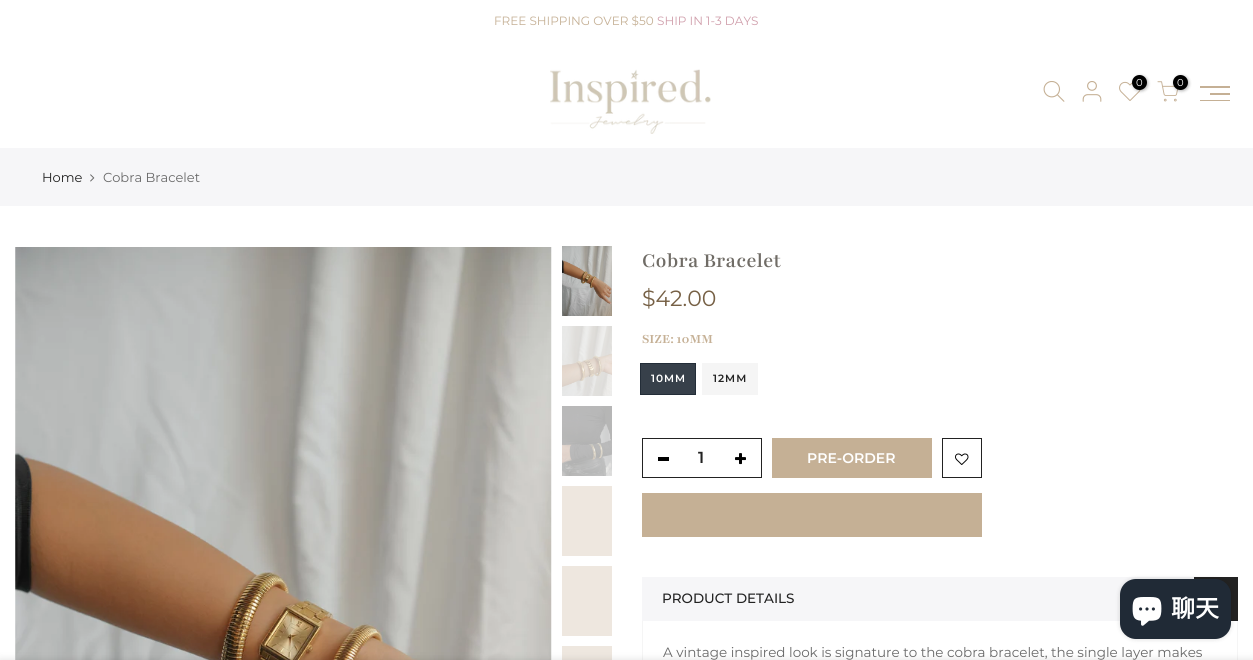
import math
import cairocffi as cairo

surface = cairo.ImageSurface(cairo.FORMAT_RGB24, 1253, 660)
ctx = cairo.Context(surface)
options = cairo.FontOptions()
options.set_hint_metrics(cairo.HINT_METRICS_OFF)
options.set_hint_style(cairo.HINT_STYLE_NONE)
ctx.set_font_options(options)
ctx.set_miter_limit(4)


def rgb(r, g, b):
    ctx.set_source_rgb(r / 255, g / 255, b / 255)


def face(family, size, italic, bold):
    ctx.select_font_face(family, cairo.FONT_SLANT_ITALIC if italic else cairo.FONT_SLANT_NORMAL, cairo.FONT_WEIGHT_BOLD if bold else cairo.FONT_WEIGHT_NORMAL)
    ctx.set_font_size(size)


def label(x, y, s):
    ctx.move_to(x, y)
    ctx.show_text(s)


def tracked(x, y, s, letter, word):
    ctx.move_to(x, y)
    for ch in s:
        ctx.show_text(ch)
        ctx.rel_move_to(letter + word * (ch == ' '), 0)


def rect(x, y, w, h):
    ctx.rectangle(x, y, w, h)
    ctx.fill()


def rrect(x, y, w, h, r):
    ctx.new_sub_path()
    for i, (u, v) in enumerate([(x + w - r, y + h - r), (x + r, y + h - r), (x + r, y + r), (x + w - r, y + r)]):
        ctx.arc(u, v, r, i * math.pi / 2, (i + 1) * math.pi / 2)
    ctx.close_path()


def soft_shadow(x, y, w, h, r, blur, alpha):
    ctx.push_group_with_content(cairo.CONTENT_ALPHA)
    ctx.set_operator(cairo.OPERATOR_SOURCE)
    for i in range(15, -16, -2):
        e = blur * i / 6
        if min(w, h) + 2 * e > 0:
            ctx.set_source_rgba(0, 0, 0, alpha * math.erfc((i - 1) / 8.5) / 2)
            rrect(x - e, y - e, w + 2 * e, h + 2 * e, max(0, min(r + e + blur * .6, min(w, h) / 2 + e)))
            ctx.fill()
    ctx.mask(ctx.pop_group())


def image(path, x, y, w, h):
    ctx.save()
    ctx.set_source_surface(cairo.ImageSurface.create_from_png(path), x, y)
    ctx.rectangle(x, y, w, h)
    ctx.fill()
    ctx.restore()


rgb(255, 255, 255)
ctx.paint()
face('Montserrat', 12, 0, 0)
rgb(197, 176, 149)
label(494, 25, 'FREE SHIPPING OVER $50')
rgb(207, 157, 170)
label(657, 25, 'SHIP IN 1-3 DAYS')
image('image0.png', 550, 69, 161, 65)
image('image1.png', 1043, 81, 22, 21)
image('image2.png', 1082, 81, 20, 21)
image('image3.png', 1119, 81, 22, 20)
rgb(0, 0, 0)
soft_shadow(1133, 76, 15, 15, 7.5, 1.5, 0.3)
rgb(0, 0, 0)
ctx.arc(1139.5, 82.5, 7.5, 0, 2 * math.pi)
ctx.fill()
face('Montserrat', 10, 0, 0)
rgb(255, 255, 255)
label(1136, 86, '0')
image('image4.png', 1157, 81, 21, 21)
rgb(0, 0, 0)
soft_shadow(1174, 76, 15, 15, 7.5, 1.5, 0.3)
rgb(0, 0, 0)
ctx.arc(1180.5, 82.5, 7.5, 0, 2 * math.pi)
ctx.fill()
rgb(255, 255, 255)
label(1177, 86, '0')
rgb(197, 176, 149)
rect(1200, 86, 30, 2)
rect(1210, 93, 20, 2)
rect(1200, 100, 30, 1)
rgb(246, 246, 248)
rect(0, 148, 1253, 58)
face('Montserrat', 13, 0, 0)
rgb(34, 34, 34)
label(42, 182, 'Home')
image('image5.png', 90, 174, 5, 8)
rgb(105, 105, 105)
label(103, 182, 'Cobra Bracelet')
image('image6.png', 15, 247, 537, 413)
image('image7.png', 562, 246, 50, 70)
image('image8.png', 562, 326, 50, 70)
image('image9.png', 562, 406, 50, 70)
rgb(238, 231, 223)
rect(562, 486, 50, 70)
rect(562, 566, 50, 70)
rect(562, 646, 50, 14)
face('Playfair SemiBold', 22, 0, 0)
rgb(112, 108, 102)
label(642, 267, 'Cobra Bracelet')
face('Montserrat', 22, 0, 0)
rgb(118, 96, 69)
label(642, 306, '$42.00')
face('Playfair', 14, 0, 1)
rgb(197, 176, 149)
label(642, 343, 'SIZE: 10MM')
rgb(55, 64, 74)
ctx.rectangle(640.5, 363.5, 55, 31)
ctx.fill_preserve()
rgb(35, 45, 56)
ctx.set_line_width(1)
ctx.stroke()
face('Montserrat SemiBold', 10.5, 0, 0)
rgb(255, 255, 255)
tracked(651, 382, '10MM', 1, 0)
rgb(245, 245, 245)
rect(702, 363, 56, 32)
rgb(34, 34, 34)
tracked(713, 382, '12MM', 1, 0)
ctx.rectangle(642.5, 438.5, 119, 39)
ctx.stroke()
face('Montserrat SemiBold', 16, 0, 0)
label(698, 463, '1')
rgb(0, 0, 0)
rect(658, 457, 11, 4)
image('image10.png', 735, 453, 11, 12)
rgb(197, 176, 149)
rect(772, 438, 160, 40)
face('Montserrat SemiBold', 14, 0, 0)
rgb(255, 255, 255)
label(807, 463, 'PRE-ORDER')
ctx.rectangle(942.5, 438.5, 39, 39)
rgb(34, 34, 34)
ctx.stroke()
image('image11.png', 955, 453, 14, 12)
ctx.new_path()
ctx.move_to(956, 465)
ctx.curve_to(952.5, 461.5, 952.5, 456.5, 956, 453)
rgb(255, 255, 255)
ctx.stroke()
rgb(197, 176, 149)
rect(642, 493, 340, 44)
rgb(246, 246, 248)
rect(642, 577, 552, 44)
face('Montserrat Medium', 13.5, 0, 0)
rgb(34, 34, 34)
label(662, 603, 'PRODUCT DETAILS')
rect(1194, 577, 44, 44)
rgb(245, 245, 245)
rect(1237, 621, 1, 39)
rect(642, 621, 1, 39)
face('Montserrat', 13.5, 0, 0)
rgb(105, 105, 105)
label(663, 657, 'A vintage inspired look is signature to the cobra bracelet, the single layer makes')
rgb(0, 0, 0)
soft_shadow(1120, 579, 111, 60, 16, 2.5, 0.15)
rgb(32, 42, 54)
rrect(1120, 579, 111, 60, 16)
ctx.fill()
image('image12.png', 1132, 597, 30, 29)
face('Noto Sans CJK TC', 24, 0, 1)
rgb(255, 255, 255)
label(1171, 617, '聊天')
rgb(0, 0, 0)
soft_shadow(0, 660, 1253, 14, 0, 4.5, 0.12)
surface.write_to_png('render.png')
